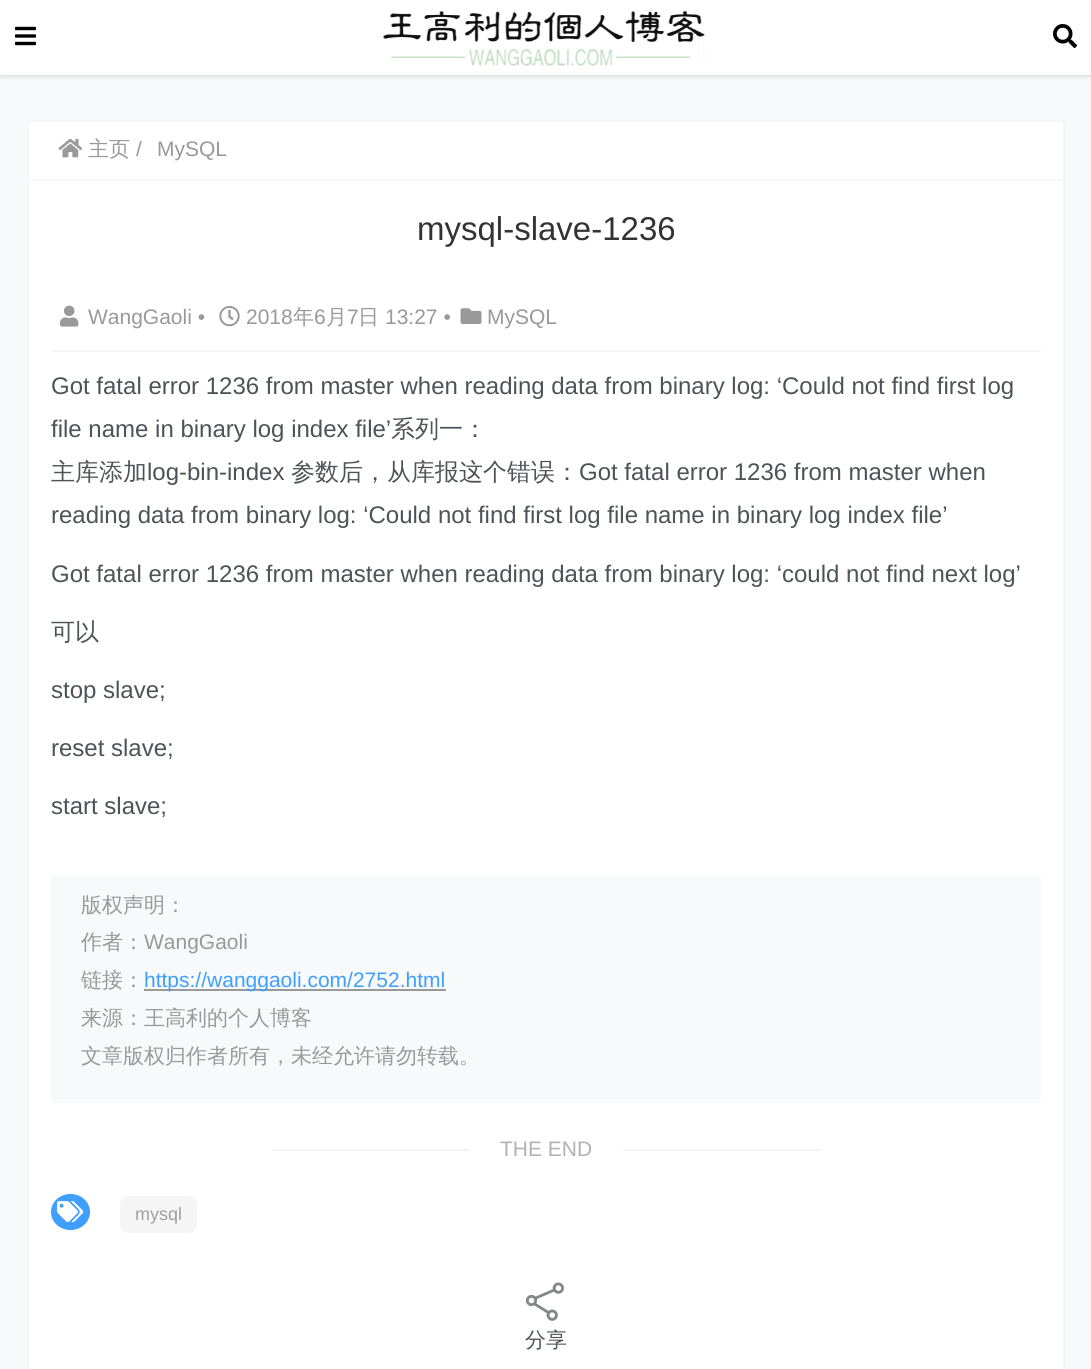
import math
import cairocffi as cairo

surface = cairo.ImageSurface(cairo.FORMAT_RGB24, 1091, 1369)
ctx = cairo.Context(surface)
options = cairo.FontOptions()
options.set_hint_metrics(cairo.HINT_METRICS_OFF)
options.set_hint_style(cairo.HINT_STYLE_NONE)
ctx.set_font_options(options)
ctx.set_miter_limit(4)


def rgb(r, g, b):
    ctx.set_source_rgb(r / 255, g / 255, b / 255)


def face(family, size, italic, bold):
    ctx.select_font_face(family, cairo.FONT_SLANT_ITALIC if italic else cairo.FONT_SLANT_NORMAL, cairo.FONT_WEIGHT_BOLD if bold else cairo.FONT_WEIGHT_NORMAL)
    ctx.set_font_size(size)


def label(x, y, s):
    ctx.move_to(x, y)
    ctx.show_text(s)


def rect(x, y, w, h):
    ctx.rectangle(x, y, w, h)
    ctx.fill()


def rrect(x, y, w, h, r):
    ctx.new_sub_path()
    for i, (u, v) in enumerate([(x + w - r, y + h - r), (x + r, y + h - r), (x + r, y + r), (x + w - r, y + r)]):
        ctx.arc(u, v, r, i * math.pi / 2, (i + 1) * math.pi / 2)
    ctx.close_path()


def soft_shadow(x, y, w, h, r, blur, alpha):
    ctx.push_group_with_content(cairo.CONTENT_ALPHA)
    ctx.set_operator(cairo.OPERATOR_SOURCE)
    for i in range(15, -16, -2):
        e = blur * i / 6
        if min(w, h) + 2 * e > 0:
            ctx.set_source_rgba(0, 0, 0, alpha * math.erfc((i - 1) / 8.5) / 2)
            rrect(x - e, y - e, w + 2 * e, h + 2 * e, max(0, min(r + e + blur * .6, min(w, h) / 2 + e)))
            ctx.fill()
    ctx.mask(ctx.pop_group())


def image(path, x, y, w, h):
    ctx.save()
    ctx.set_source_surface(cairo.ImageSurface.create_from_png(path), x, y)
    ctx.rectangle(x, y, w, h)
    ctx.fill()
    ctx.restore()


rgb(247, 249, 250)
ctx.paint()
rgb(0, 0, 0)
soft_shadow(-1, -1, 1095, 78, 0, 2, 0.1)
rgb(255, 255, 255)
rect(0, 0, 1091, 75)
image('image0.png', 15, 26, 21, 20)
image('image1.png', 383, 11, 322, 55)
image('image2.png', 1053, 24, 24, 24)
rrect(28, 121, 1036, 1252, 2)
ctx.fill_preserve()
rgb(245, 246, 247)
ctx.stroke()
rgb(247, 247, 247)
rect(29, 179, 1035, 2)
image('image3.png', 58, 138, 25, 20)
face('WenQuanYi Zen Hei Medium', 21, 0, 0)
rgb(153, 153, 153)
label(88, 156, '主页')
face('Liberation Sans', 21, 0, 0)
label(136, 156, '/')
label(157, 156, 'MySQL')
face('Liberation Sans', 33, 0, 0)
rgb(51, 51, 51)
label(417, 240, 'mysql-slave-1236')
rgb(245, 246, 247)
rect(51, 350, 990, 2)
image('image4.png', 60, 305, 19, 22)
face('Liberation Sans', 21, 0, 0)
rgb(153, 153, 153)
label(88, 324, 'WangGaoli •')
image('image5.png', 219, 306, 21, 21)
label(246, 324, '2018')
face('WenQuanYi Zen Hei Medium', 21, 0, 0)
label(293, 324, '年')
face('Liberation Sans', 21, 0, 0)
label(314, 324, '6')
face('WenQuanYi Zen Hei Medium', 21, 0, 0)
label(326, 324, '月')
face('Liberation Sans', 21, 0, 0)
label(347, 324, '7')
face('WenQuanYi Zen Hei Medium', 21, 0, 0)
label(358, 324, '日')
face('Liberation Sans', 21, 0, 0)
label(385, 324, '13:27 •')
image('image6.png', 460, 308, 22, 16)
label(487, 324, 'MySQL')
face('Liberation Sans', 24, 0, 0)
rgb(78, 83, 88)
label(51, 394, 'Got fatal error 1236 from master when reading data from binary log: ‘Could not find first log')
label(51, 437, 'file name in binary log index file’')
face('WenQuanYi Zen Hei Medium', 24, 0, 0)
label(391, 437, '系列一：')
label(51, 480, '主库添加')
face('Liberation Sans', 24, 0, 0)
label(147, 480, 'log-bin-index')
face('WenQuanYi Zen Hei Medium', 24, 0, 0)
label(291, 480, '参数后，从库报这个错误：')
face('Liberation Sans', 24, 0, 0)
label(579, 480, 'Got fatal error 1236 from master when')
label(51, 523, 'reading data from binary log: ‘Could not find first log file name in binary log index file’')
label(51, 582, 'Got fatal error 1236 from master when reading data from binary log: ‘could not find next log’')
face('WenQuanYi Zen Hei Medium', 24, 0, 0)
label(51, 640, '可以')
face('Liberation Sans', 24, 0, 0)
label(51, 698, 'stop slave;')
label(51, 756, 'reset slave;')
label(51, 814, 'start slave;')
rgb(247, 249, 250)
rrect(51, 875, 990, 228, 3)
ctx.fill()
face('WenQuanYi Zen Hei Medium', 21, 0, 0)
rgb(153, 153, 153)
label(81, 912, '版权声明：')
label(81, 949, '作者：')
face('Liberation Sans', 21, 0, 0)
label(144, 949, 'WangGaoli')
face('WenQuanYi Zen Hei Medium', 21, 0, 0)
label(81, 987, '链接：')
rect(144, 989, 302, 2)
face('Liberation Sans', 21, 0, 0)
rgb(64, 158, 255)
label(144, 987, 'https://wanggaoli.com/2752.html')
face('WenQuanYi Zen Hei Medium', 21, 0, 0)
rgb(153, 153, 153)
label(81, 1025, '来源：王高利的个人博客')
label(81, 1063, '文章版权归作者所有，未经允许请勿转载。')
rgb(243, 243, 243)
rect(272, 1149, 198, 2)
face('Liberation Sans', 21, 0, 0)
rgb(177, 177, 184)
label(500, 1156, 'THE END')
rgb(243, 243, 243)
rect(623, 1149, 198, 2)
rgb(64, 158, 255)
ctx.new_path()
ctx.move_to(70.5, 1194)
ctx.curve_to(81.5, 1194, 90, 1202, 90, 1212)
ctx.curve_to(90, 1222, 81.5, 1230, 70.5, 1230)
ctx.curve_to(59.5, 1230, 51, 1222, 51, 1212)
ctx.curve_to(51, 1202, 59.5, 1194, 70.5, 1194)
ctx.close_path()
ctx.fill()
image('image7.png', 57, 1201, 27, 22)
rgb(245, 245, 245)
rrect(120, 1196, 77, 37, 9)
ctx.fill()
face('Liberation Sans', 18, 0, 0)
rgb(160, 160, 160)
label(135, 1220, 'mysql')
image('image8.png', 525, 1282, 39, 39)
face('WenQuanYi Zen Hei Medium', 21, 0, 0)
rgb(78, 83, 88)
label(525, 1347, '分享')
surface.write_to_png('render.png')
